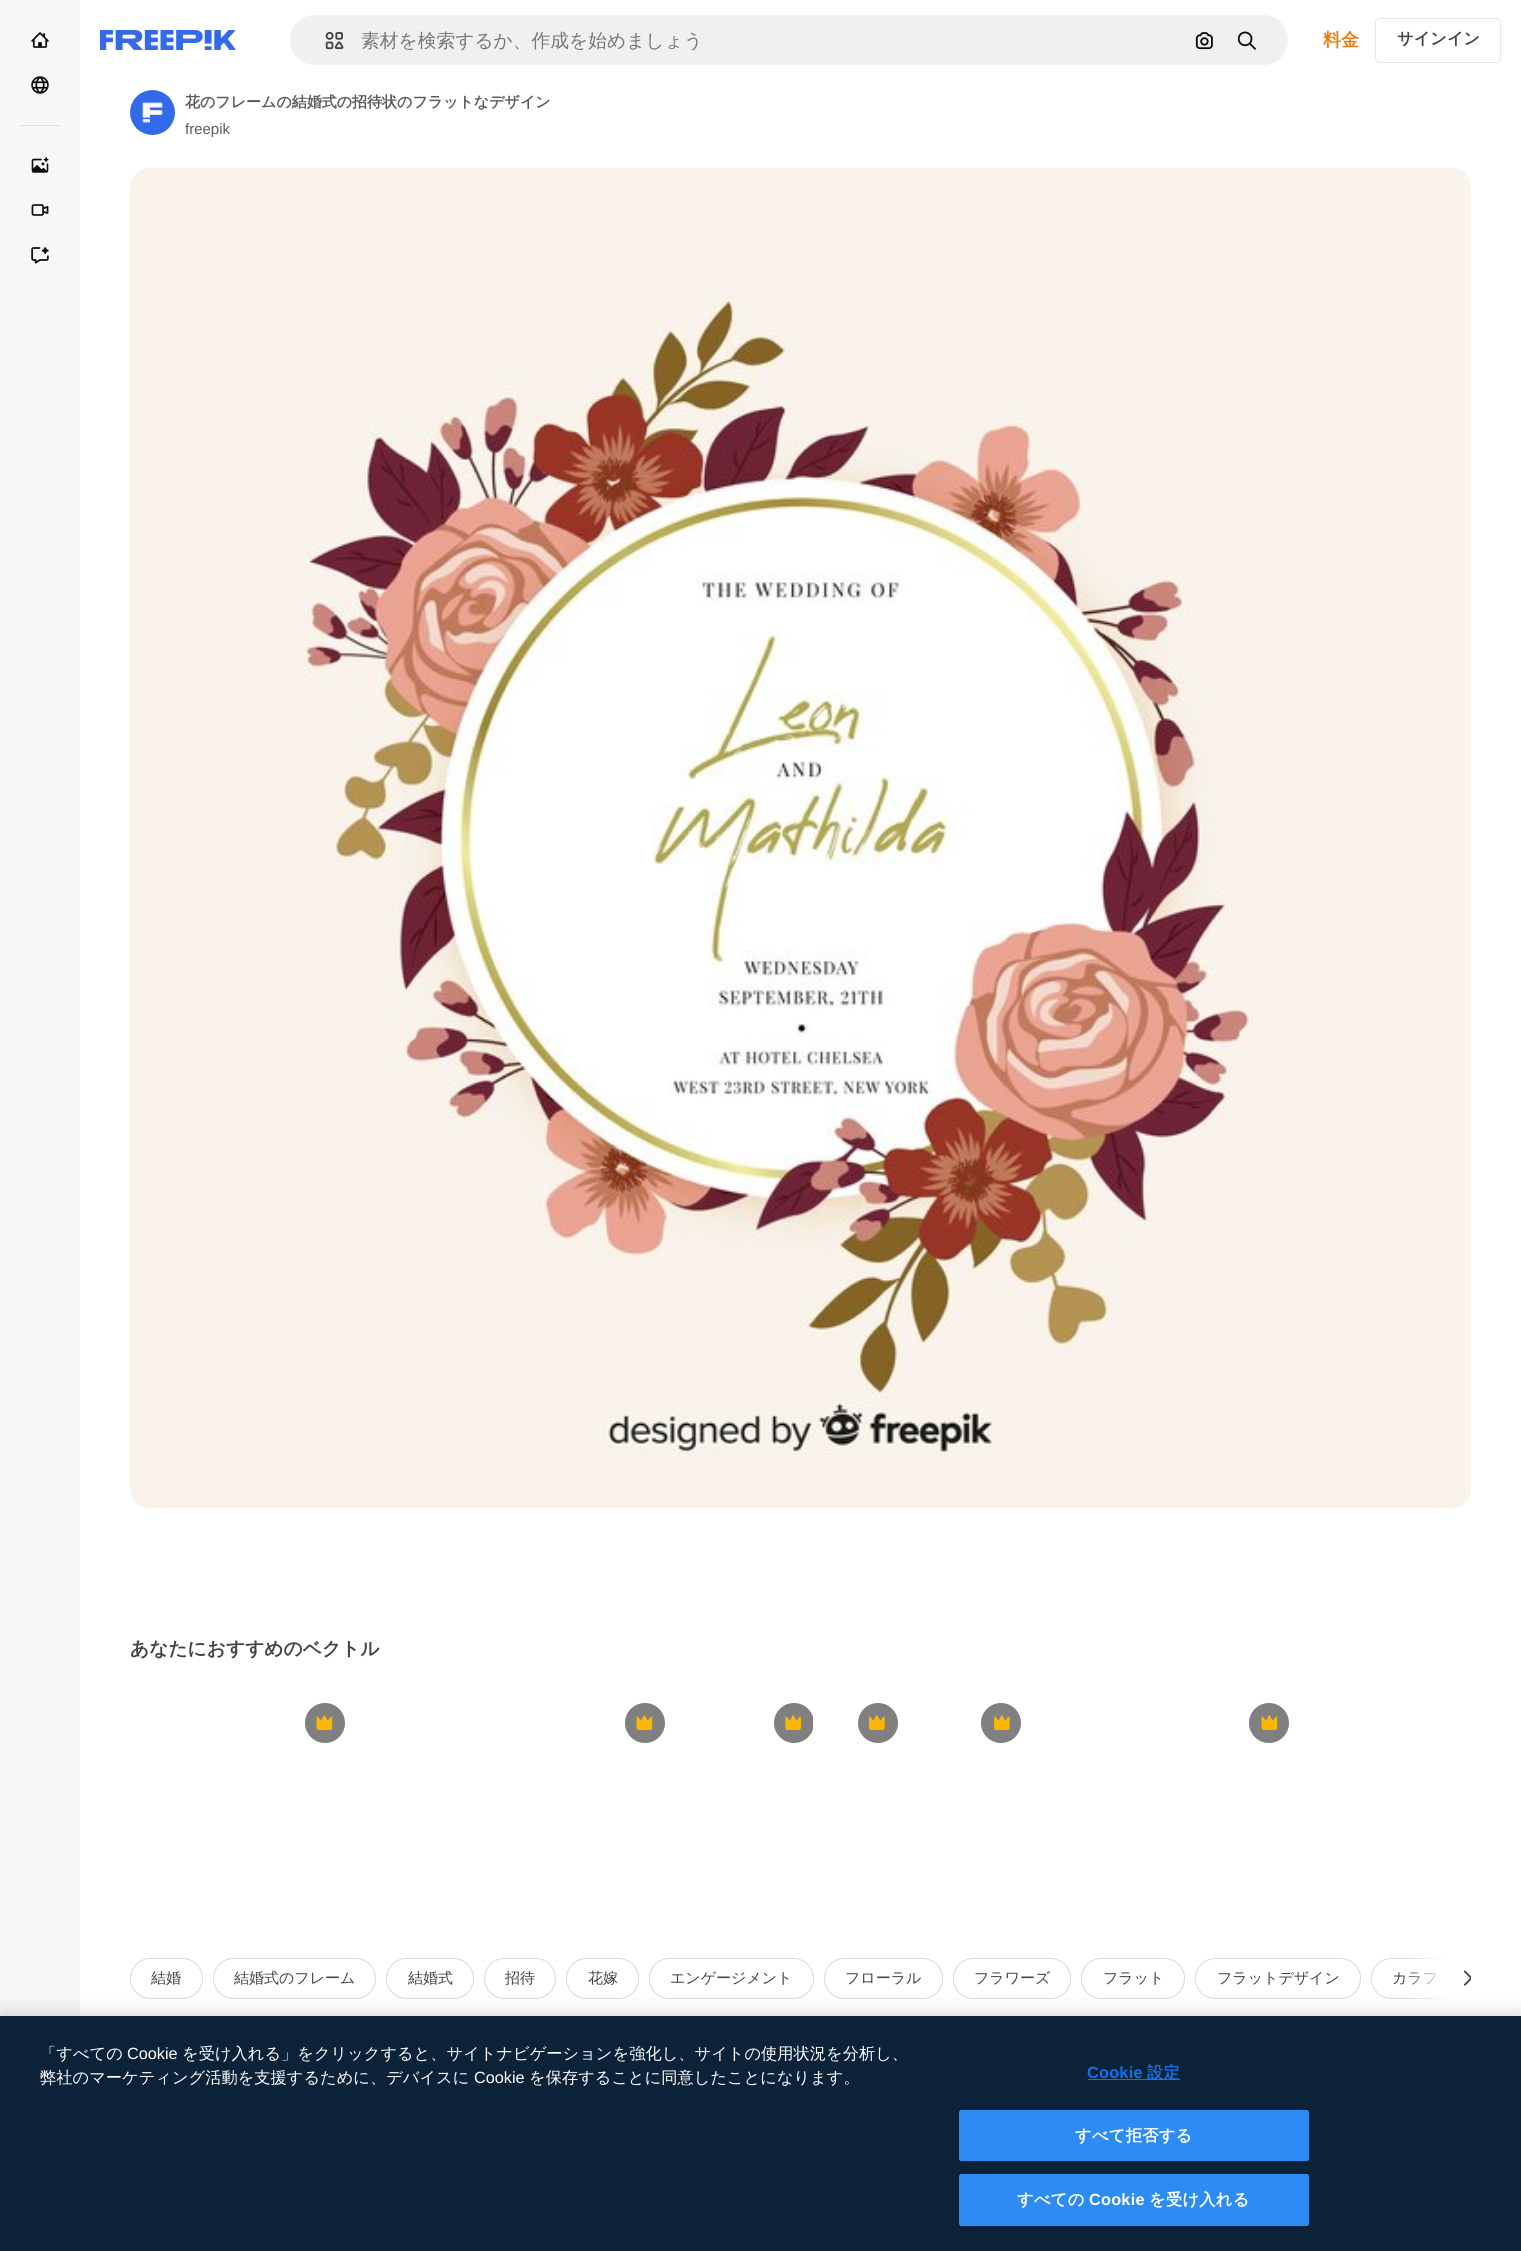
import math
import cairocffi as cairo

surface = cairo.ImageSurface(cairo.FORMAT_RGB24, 1521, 2251)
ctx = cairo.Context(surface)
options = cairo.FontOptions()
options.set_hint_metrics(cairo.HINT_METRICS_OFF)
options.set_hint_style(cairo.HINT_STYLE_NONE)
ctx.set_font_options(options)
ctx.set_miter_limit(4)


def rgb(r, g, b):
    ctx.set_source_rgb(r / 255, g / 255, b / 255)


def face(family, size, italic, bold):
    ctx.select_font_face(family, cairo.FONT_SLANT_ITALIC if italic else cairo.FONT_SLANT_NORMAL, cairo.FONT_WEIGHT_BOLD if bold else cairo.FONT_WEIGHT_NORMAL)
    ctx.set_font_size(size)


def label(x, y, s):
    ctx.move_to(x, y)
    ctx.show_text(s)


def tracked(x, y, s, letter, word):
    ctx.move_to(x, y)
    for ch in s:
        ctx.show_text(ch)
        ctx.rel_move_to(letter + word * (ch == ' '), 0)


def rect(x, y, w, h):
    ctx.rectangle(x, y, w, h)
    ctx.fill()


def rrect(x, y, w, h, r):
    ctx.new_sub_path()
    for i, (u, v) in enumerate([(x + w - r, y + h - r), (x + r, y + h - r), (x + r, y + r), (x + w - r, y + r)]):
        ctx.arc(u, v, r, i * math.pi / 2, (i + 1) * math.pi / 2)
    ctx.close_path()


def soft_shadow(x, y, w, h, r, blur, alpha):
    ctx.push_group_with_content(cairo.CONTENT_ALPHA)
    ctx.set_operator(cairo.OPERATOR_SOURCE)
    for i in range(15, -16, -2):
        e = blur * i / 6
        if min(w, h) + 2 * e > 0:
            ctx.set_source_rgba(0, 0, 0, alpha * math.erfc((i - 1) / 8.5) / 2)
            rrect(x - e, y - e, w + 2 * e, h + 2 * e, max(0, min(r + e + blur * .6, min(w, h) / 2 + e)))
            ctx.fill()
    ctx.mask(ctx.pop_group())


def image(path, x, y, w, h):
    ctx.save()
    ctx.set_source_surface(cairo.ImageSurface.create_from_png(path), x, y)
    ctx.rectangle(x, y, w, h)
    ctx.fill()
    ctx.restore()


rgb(255, 255, 255)
ctx.paint()
rgb(247, 247, 247)
rect(0, 0, 80, 2016)
image('image0.png', 31, 32, 18, 16)
image('image1.png', 31, 76, 18, 18)
rgb(224, 224, 224)
rect(20, 125, 40, 1)
image('image2.png', 31, 157, 18, 16)
image('image3.png', 31, 204, 18, 12)
image('image4.png', 31, 247, 18, 17)
image('image5.png', 100, 30, 136, 20)
rgb(240, 240, 240)
rrect(289.5, 14.5, 999, 51, 25.5)
ctx.fill_preserve()
rgb(255, 255, 255)
ctx.set_line_width(1)
ctx.stroke()
image('image6.png', 325, 31, 19, 19)
face('WenQuanYi Zen Hei Medium', 18.75, 0, 0)
rgb(119, 119, 119)
label(361, 47, '素材を検索するか、作成を始めましょう')
image('image7.png', 1195, 32, 18, 18)
image('image8.png', 1238, 31, 18, 19)
face('WenQuanYi Zen Hei', 18, 0, 1)
rgb(234, 126, 17)
label(1323, 46, '料金')
rrect(1375.5, 18.5, 125, 44, 4.5)
rgb(231, 231, 231)
ctx.stroke()
face('WenQuanYi Zen Hei', 16.25, 0, 1)
rgb(66, 66, 66)
label(1397, 44, 'サインイン')
image('image9.png', 130, 90, 45, 45)
face('WenQuanYi Zen Hei', 15, 0, 1)
rgb(92, 92, 92)
label(185, 107, '花のフレームの結婚式の招待状のフラットなデザイン')
face('Liberation Sans', 15, 0, 0)
label(185, 134, 'freepik')
image('image10.png', 130, 168, 1341, 1341)
face('WenQuanYi Zen Hei', 18.75, 0, 1)
rgb(66, 66, 66)
label(130, 1655, 'あなたにおすすめのベクトル')
rgb(128, 128, 128)
ctx.new_path()
ctx.arc(325, 1723, 20, 0, 2 * math.pi)
ctx.fill()
image('image11.png', 316, 1715, 17, 15)
ctx.arc(645, 1723, 20, 0, 2 * math.pi)
ctx.fill()
image('image11.png', 636, 1715, 17, 15)
ctx.save()
rrect(754, 1683, 59, 250, 20)
ctx.clip()
ctx.arc(794, 1723, 20, 0, 2 * math.pi)
ctx.fill()
ctx.restore()
image('image12.png', 785, 1715, 16, 15)
ctx.arc(878, 1723, 20, 0, 2 * math.pi)
ctx.fill()
image('image13.png', 869, 1715, 16, 15)
ctx.arc(1001, 1723, 20, 0, 2 * math.pi)
ctx.fill()
image('image13.png', 994, 1715, 16, 15)
ctx.arc(1269, 1723, 20, 0, 2 * math.pi)
ctx.fill()
image('image11.png', 1261, 1715, 17, 15)
rrect(130.5, 1958.5, 72, 40, 20)
rgb(216, 216, 216)
ctx.stroke()
face('WenQuanYi Zen Hei Medium', 15, 0, 0)
rgb(66, 66, 66)
label(151, 1983, '結婚')
rrect(213.5, 1958.5, 162, 40, 20)
rgb(216, 216, 216)
ctx.stroke()
rgb(66, 66, 66)
label(234, 1983, '結婚式のフレーム')
rrect(386.5, 1958.5, 87, 40, 20)
rgb(216, 216, 216)
ctx.stroke()
rgb(66, 66, 66)
label(408, 1983, '結婚式')
rrect(484.5, 1958.5, 71, 40, 20)
rgb(216, 216, 216)
ctx.stroke()
rgb(66, 66, 66)
label(505, 1983, '招待')
rrect(566.5, 1958.5, 72, 40, 20)
rgb(216, 216, 216)
ctx.stroke()
rgb(66, 66, 66)
label(588, 1983, '花嫁')
rrect(649.5, 1958.5, 164, 40, 20)
rgb(216, 216, 216)
ctx.stroke()
rgb(66, 66, 66)
label(670, 1983, 'エンゲージメント')
rrect(824.5, 1958.5, 118, 40, 20)
rgb(216, 216, 216)
ctx.stroke()
rgb(66, 66, 66)
label(845, 1983, 'フローラル')
rrect(953.5, 1958.5, 117, 40, 20)
rgb(216, 216, 216)
ctx.stroke()
rgb(66, 66, 66)
label(974, 1983, 'フラワーズ')
rrect(1081.5, 1958.5, 103, 40, 20)
rgb(216, 216, 216)
ctx.stroke()
rgb(66, 66, 66)
label(1103, 1983, 'フラット')
rrect(1195.5, 1958.5, 165, 40, 20)
rgb(216, 216, 216)
ctx.stroke()
rgb(66, 66, 66)
label(1217, 1983, 'フラットデザイン')
ctx.save()
ctx.rectangle(130, 1958, 1341, 41)
ctx.clip()
rrect(1371.5, 1958.5, 103, 40, 20)
rgb(216, 216, 216)
ctx.stroke()
ctx.restore()
label(1392, 1983, 'カラフ')
rgb(255, 255, 255)
rect(1446, 1958, 25, 41)
gradient = cairo.LinearGradient(1446, 1978, 1403, 1978)
gradient.add_color_stop_rgba(0, 1, 1, 1, 1)
gradient.add_color_stop_rgba(1, 1, 1, 1, 0)
ctx.set_source(gradient)
rect(1404, 1958, 42, 41)
image('image14.png', 1463, 1970, 8, 16)
rgb(0, 0, 0)
soft_shadow(0, 2016, 1521, 235, 0, 11, 0.2)
rgb(11, 34, 57)
rect(0, 2016, 1521, 235)
face('WenQuanYi Zen Hei Medium', 16.25, 0, 0)
rgb(255, 255, 255)
label(40, 2059, '「すべての')
face('Liberation Sans', 16.25, 0, 0)
label(127, 2059, 'Cookie')
face('WenQuanYi Zen Hei Medium', 16.25, 0, 0)
label(182, 2059, 'を受け入れる」をクリックすると、サイトナビゲーションを強化し、サイトの使用状況を分析し、')
label(40, 2083, '弊社のマーケティング活動を支援するために、デバイスに')
face('Liberation Sans', 16.25, 0, 0)
label(474, 2083, 'Cookie')
face('WenQuanYi Zen Hei Medium', 16.25, 0, 0)
label(529, 2083, 'を保存することに同意したことになります。')
face('Liberation Sans', 16.25, 0, 1)
rgb(18, 115, 235)
tracked(1087, 2078, 'Cookie', 0.25, 0)
rect(1088, 2079, 92, 1)
face('WenQuanYi Zen Hei', 16.25, 0, 1)
tracked(1147, 2078, '設定', 0.25, 0)
rgb(44, 140, 244)
rrect(959.5, 2110.5, 349, 50, 2)
ctx.fill_preserve()
ctx.stroke()
rgb(255, 255, 255)
tracked(1075, 2141, 'すべて拒否する', 0.25, 0)
rgb(44, 140, 244)
rrect(959.5, 2174.5, 349, 51, 2)
ctx.fill_preserve()
ctx.stroke()
rgb(255, 255, 255)
tracked(1017, 2205, 'すべての', 0.25, 0)
face('Liberation Sans', 16.25, 0, 1)
tracked(1089, 2205, 'Cookie', 0.25, 0)
face('WenQuanYi Zen Hei', 16.25, 0, 1)
tracked(1149, 2205, 'を受け入れる', 0.25, 0)
surface.write_to_png('render.png')
